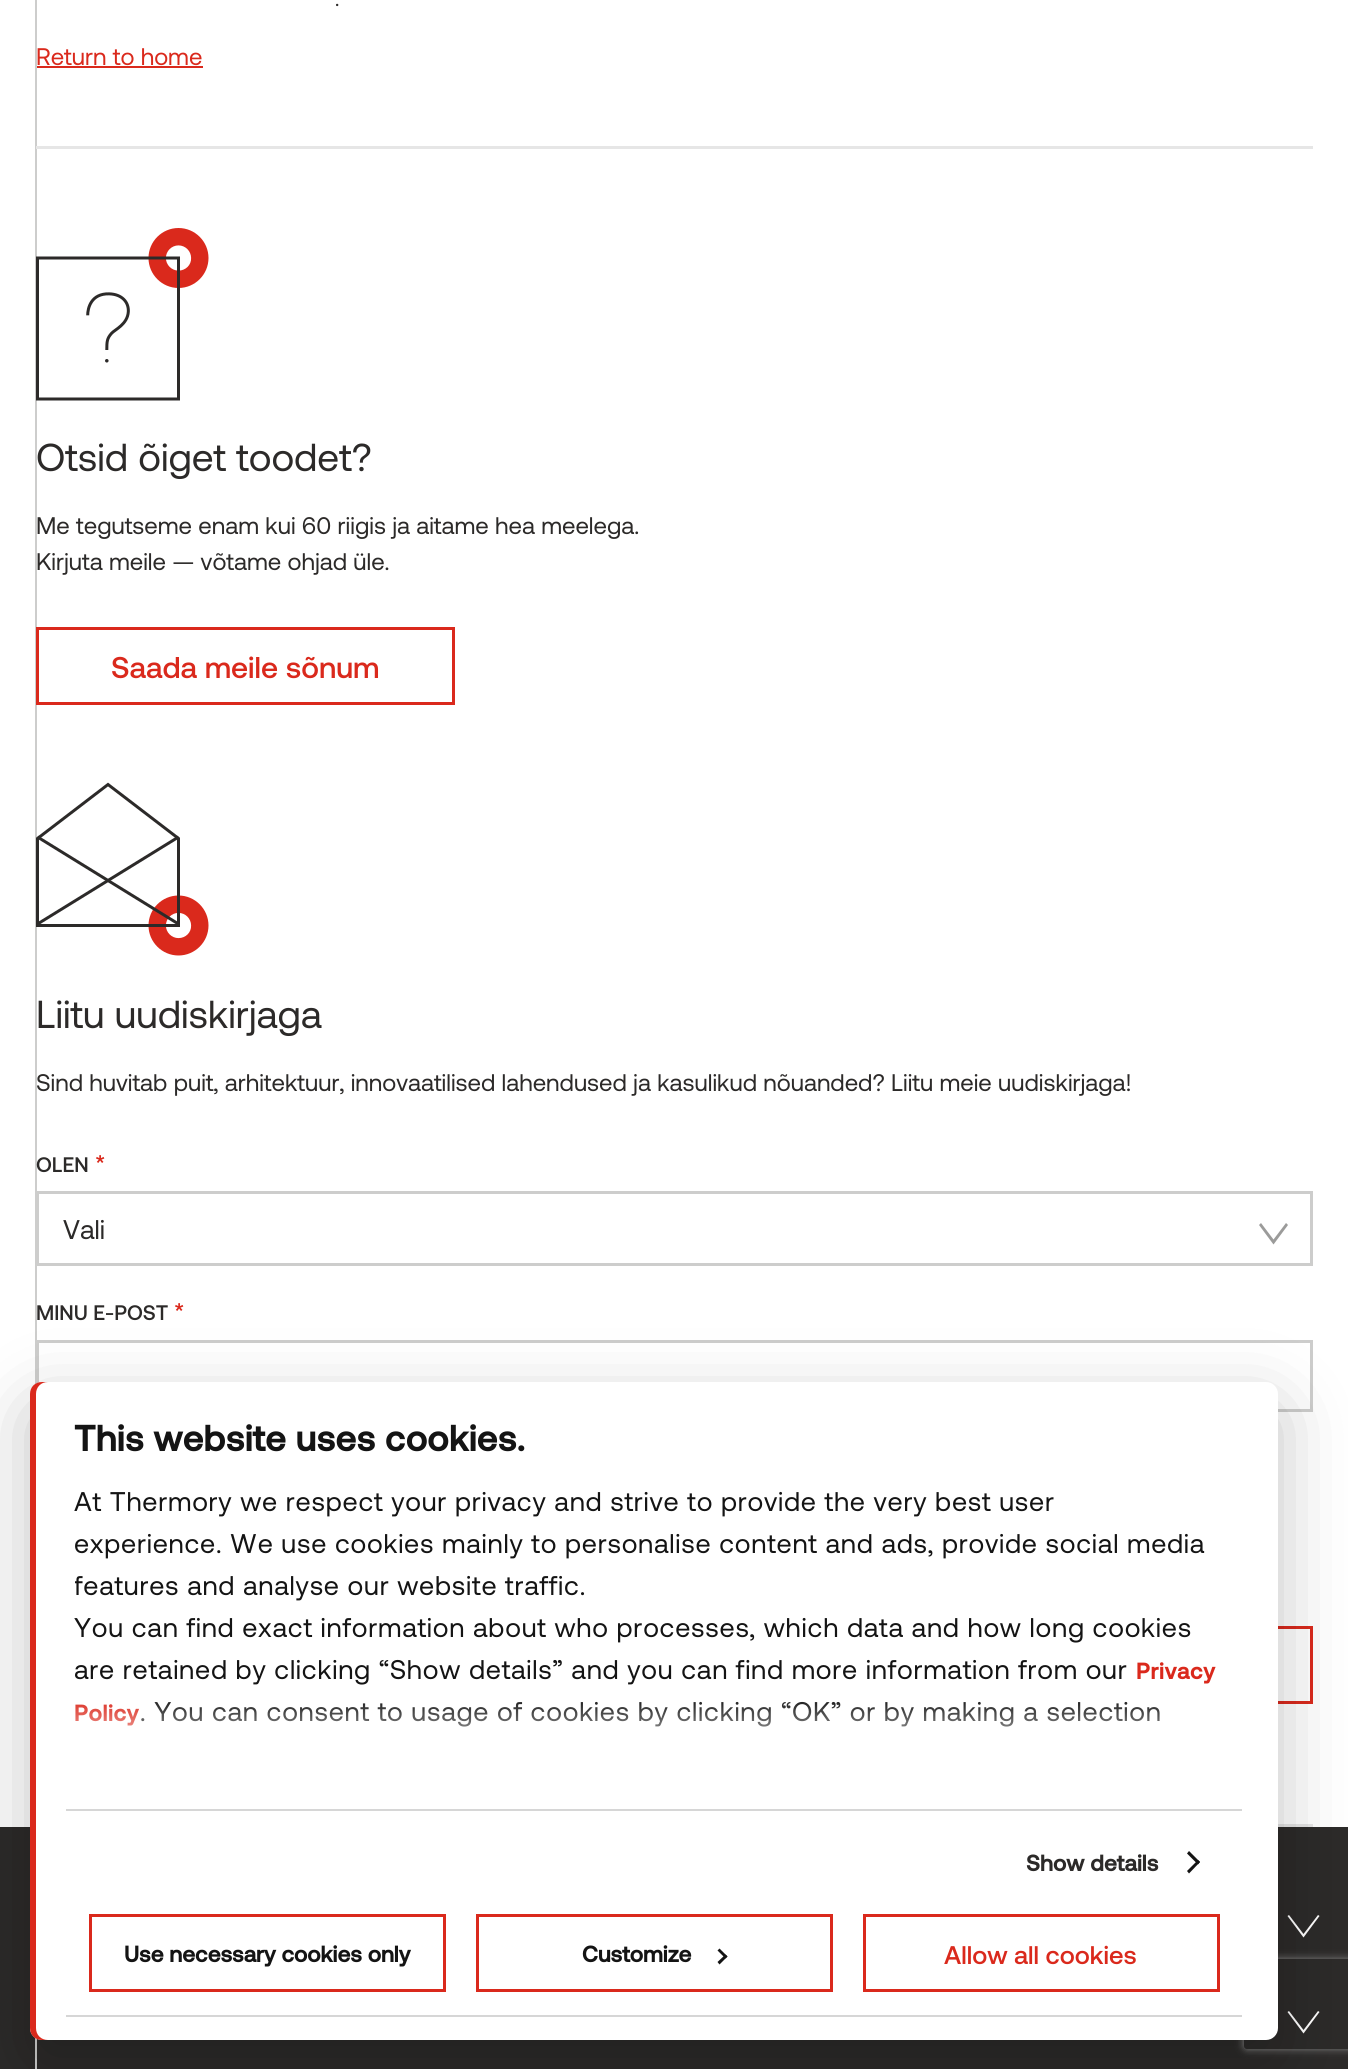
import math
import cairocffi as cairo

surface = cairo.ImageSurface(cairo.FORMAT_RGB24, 1348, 2069)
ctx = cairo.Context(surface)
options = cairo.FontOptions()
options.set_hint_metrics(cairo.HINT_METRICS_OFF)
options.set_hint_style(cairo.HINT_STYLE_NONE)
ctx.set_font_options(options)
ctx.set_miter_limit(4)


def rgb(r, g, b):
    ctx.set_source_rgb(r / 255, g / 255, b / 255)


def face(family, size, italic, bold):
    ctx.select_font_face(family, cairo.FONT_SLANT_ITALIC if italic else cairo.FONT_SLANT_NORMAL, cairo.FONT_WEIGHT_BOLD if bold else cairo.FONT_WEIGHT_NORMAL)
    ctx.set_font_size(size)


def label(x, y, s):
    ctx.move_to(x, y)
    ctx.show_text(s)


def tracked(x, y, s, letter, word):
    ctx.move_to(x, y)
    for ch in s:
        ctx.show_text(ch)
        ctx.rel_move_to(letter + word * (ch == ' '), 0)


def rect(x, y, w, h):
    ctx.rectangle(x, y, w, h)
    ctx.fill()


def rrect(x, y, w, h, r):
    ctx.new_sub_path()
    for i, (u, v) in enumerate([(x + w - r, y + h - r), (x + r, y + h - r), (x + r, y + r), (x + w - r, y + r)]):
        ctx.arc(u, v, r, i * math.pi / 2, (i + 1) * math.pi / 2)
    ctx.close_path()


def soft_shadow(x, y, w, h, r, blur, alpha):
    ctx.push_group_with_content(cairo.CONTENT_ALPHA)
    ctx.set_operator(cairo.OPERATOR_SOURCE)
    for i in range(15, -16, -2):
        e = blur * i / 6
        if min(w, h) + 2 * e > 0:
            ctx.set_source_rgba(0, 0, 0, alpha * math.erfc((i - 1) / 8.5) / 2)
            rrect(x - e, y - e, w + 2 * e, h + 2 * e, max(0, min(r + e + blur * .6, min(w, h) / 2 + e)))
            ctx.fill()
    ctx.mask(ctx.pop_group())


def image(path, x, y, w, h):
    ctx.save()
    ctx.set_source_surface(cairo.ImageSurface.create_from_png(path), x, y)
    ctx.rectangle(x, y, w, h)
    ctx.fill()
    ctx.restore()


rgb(255, 255, 255)
ctx.paint()
rgb(218, 41, 28)
rect(36, 66, 167, 2)
rgb(44, 42, 41)
rect(0, 1827, 1348, 242)
rgb(205, 205, 204)
rect(35, 0, 2, 2069)
face('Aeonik', 21, 0, 0)
rgb(44, 42, 41)
label(335, 6, '.')
face('Aeonik', 24, 0, 0)
rgb(218, 41, 28)
label(36, 65, 'Return to home')
rgb(230, 230, 230)
rect(36, 146, 1277, 3)
rect(1278, 1824, 35, 3)
image('image0.png', 36, 228, 173, 173)
face('Aeonik', 39, 0, 0)
rgb(44, 42, 41)
label(36, 471, 'Otsid õiget toodet?')
face('Aeonik', 24, 0, 0)
label(36, 534, 'Me tegutseme enam kui 60 riigis ja aitame hea meelega.')
label(36, 570, 'Kirjuta meile — võtame ohjad üle.')
ctx.rectangle(37.5, 628.5, 416, 75)
rgb(218, 41, 28)
ctx.set_line_width(3)
ctx.stroke()
face('Aeonik Medium', 30, 0, 0)
label(111, 678, 'Saada meile sõnum')
image('image1.png', 36, 782, 173, 174)
face('Aeonik', 39, 0, 0)
rgb(44, 42, 41)
label(36, 1028, 'Liitu uudiskirjaga')
face('Aeonik', 24, 0, 0)
label(36, 1091, 'Sind huvitab puit, arhitektuur, innovaatilised lahendused ja kasulikud nõuanded? Liitu meie uudiskirjaga!')
face('Aeonik Medium', 21, 0, 0)
label(36, 1172, 'OLEN')
face('Aeonik Medium', 24, 0, 0)
rgb(218, 41, 28)
label(95, 1172, '*')
ctx.rectangle(37.5, 1192.5, 1274, 72)
rgb(205, 205, 204)
ctx.stroke()
face('Aeonik', 27, 0, 0)
rgb(44, 42, 41)
label(63, 1239, 'Vali')
rgb(155, 155, 154)
ctx.new_path()
ctx.move_to(1273.5, 1244.5)
ctx.line_to(1288, 1225)
ctx.line_to(1286, 1223)
ctx.line_to(1273.5, 1239.5)
ctx.line_to(1261, 1223)
ctx.line_to(1259, 1225)
ctx.close_path()
ctx.fill()
face('Aeonik Medium', 21, 0, 0)
rgb(44, 42, 41)
label(36, 1320, 'MINU E-POST')
face('Aeonik Medium', 24, 0, 0)
rgb(218, 41, 28)
label(174, 1320, '*')
ctx.rectangle(37.5, 1341.5, 1274, 69)
rgb(205, 205, 204)
ctx.stroke()
ctx.rectangle(37.5, 1627.5, 1274, 75)
rgb(218, 41, 28)
ctx.stroke()
rgb(255, 255, 255)
ctx.new_path()
ctx.move_to(1303.5, 1937.5)
ctx.line_to(1319.5, 1916)
ctx.line_to(1318, 1915)
ctx.line_to(1303.5, 1934)
ctx.line_to(1289, 1915)
ctx.line_to(1287.5, 1916)
ctx.close_path()
ctx.fill()
ctx.new_path()
ctx.move_to(1303.5, 2033.5)
ctx.line_to(1319.5, 2012)
ctx.line_to(1318, 2011)
ctx.line_to(1303.5, 2030)
ctx.line_to(1289, 2011)
ctx.line_to(1287.5, 2012)
ctx.close_path()
ctx.fill()
rgb(0, 0, 0)
soft_shadow(30, 1406, 1248, 658, 12, 36, 0.24)
ctx.save()
ctx.set_fill_rule(cairo.FILL_RULE_EVEN_ODD)
ctx.new_path()
ctx.move_to(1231, 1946)
ctx.line_to(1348, 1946)
ctx.line_to(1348, 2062)
ctx.line_to(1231, 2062)
ctx.close_path()
ctx.move_to(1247, 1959)
ctx.line_to(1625, 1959)
ctx.curve_to(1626.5, 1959, 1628, 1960.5, 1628, 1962)
ctx.line_to(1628, 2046)
ctx.curve_to(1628, 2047.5, 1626.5, 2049, 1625, 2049)
ctx.line_to(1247, 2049)
ctx.curve_to(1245.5, 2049, 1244, 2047.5, 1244, 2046)
ctx.line_to(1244, 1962)
ctx.curve_to(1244, 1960.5, 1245.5, 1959, 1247, 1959)
ctx.close_path()
ctx.clip()
rgb(128, 128, 128)
soft_shadow(1244, 1959, 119, 90, 3, 4, 1)
ctx.restore()
rgb(255, 255, 255)
rrect(30, 1382, 1248, 658, 12)
ctx.fill()
rgb(218, 41, 28)
ctx.new_path()
ctx.move_to(42, 1382)
ctx.curve_to(35, 1382, 30, 1387, 30, 1394)
ctx.line_to(30, 2028)
ctx.curve_to(30, 2035, 35, 2040, 42, 2040)
ctx.line_to(48, 2040)
ctx.curve_to(41, 2040, 36, 2035, 36, 2028)
ctx.line_to(36, 1394)
ctx.curve_to(36, 1387, 41, 1382, 48, 1382)
ctx.close_path()
ctx.fill()
rgb(214, 214, 214)
rect(66, 1809, 1176, 2)
face('Aeonik', 36, 0, 1)
rgb(20, 20, 20)
tracked(74, 1451, 'This website uses cookies.', 0.4, 0)
face('Aeonik', 27, 0, 0)
tracked(74, 1511, 'At Thermory we respect your privacy and strive to provide the very best user', 0.75, 0)
tracked(74, 1553, 'experience. We use cookies mainly to personalise content and ads, provide social media', 0.75, 0)
ctx.save()
ctx.rectangle(75, 1415, 1158, 385)
ctx.clip()
tracked(74, 1595, 'features and analyse our website traffic.', 0.75, 0)
ctx.restore()
tracked(74, 1637, 'You can find exact information about who processes, which data and how long cookies', 0.75, 0)
tracked(74, 1679, 'are retained by clicking “Show details” and you can find more information from our', 0.75, 0)
face('Aeonik', 22.5, 0, 1)
rgb(218, 41, 28)
tracked(1136, 1679, 'Privacy', 0.75, 0)
tracked(74, 1721, 'Policy', 0.75, 0)
face('Aeonik', 27, 0, 0)
rgb(20, 20, 20)
tracked(140, 1721, '. You can consent to usage of cookies by clicking “OK” or by making a selection', 0.75, 0)
gradient = cairo.LinearGradient(644, 1809, 644, 1697)
gradient.add_color_stop_rgba(0, 1, 1, 1, 1)
gradient.add_color_stop_rgba(0.5, 1, 1, 1, 0.8)
gradient.add_color_stop_rgba(1, 1, 1, 1, 0)
ctx.set_source(gradient)
rect(75, 1702, 1085, 25)
face('Aeonik', 22.5, 0, 1)
rgb(44, 42, 41)
tracked(1026, 1871, 'Show details', 0.1, 0)
rgb(20, 20, 20)
ctx.new_path()
ctx.move_to(1189, 1851)
ctx.line_to(1200, 1862)
ctx.line_to(1198, 1864.5)
ctx.line_to(1187, 1853.5)
ctx.close_path()
ctx.fill()
ctx.new_path()
ctx.move_to(1198, 1860)
ctx.line_to(1200, 1862)
ctx.line_to(1189, 1873.5)
ctx.line_to(1187, 1871)
ctx.close_path()
ctx.fill()
rgb(214, 214, 214)
rect(66, 2015, 1176, 2)
ctx.rectangle(90.5, 1915.5, 354, 75)
rgb(218, 41, 28)
ctx.stroke()
rgb(20, 20, 20)
label(124, 1962, 'Use necessary cookies only')
ctx.rectangle(477.5, 1915.5, 354, 75)
rgb(218, 41, 28)
ctx.stroke()
rgb(20, 20, 20)
label(582, 1962, 'Customize')
ctx.new_path()
ctx.move_to(719.5, 1948.5)
ctx.line_to(727.5, 1956.5)
ctx.line_to(725.5, 1958.5)
ctx.line_to(717.5, 1950.5)
ctx.close_path()
ctx.fill()
ctx.new_path()
ctx.move_to(725.5, 1954.5)
ctx.line_to(727.5, 1956.5)
ctx.line_to(719.5, 1964.5)
ctx.line_to(717.5, 1962)
ctx.close_path()
ctx.fill()
ctx.rectangle(864.5, 1915.5, 354, 75)
rgb(218, 41, 28)
ctx.stroke()
face('Aeonik Medium', 25.5, 0, 0)
label(944, 1964, 'Allow all cookies')
surface.write_to_png('render.png')
